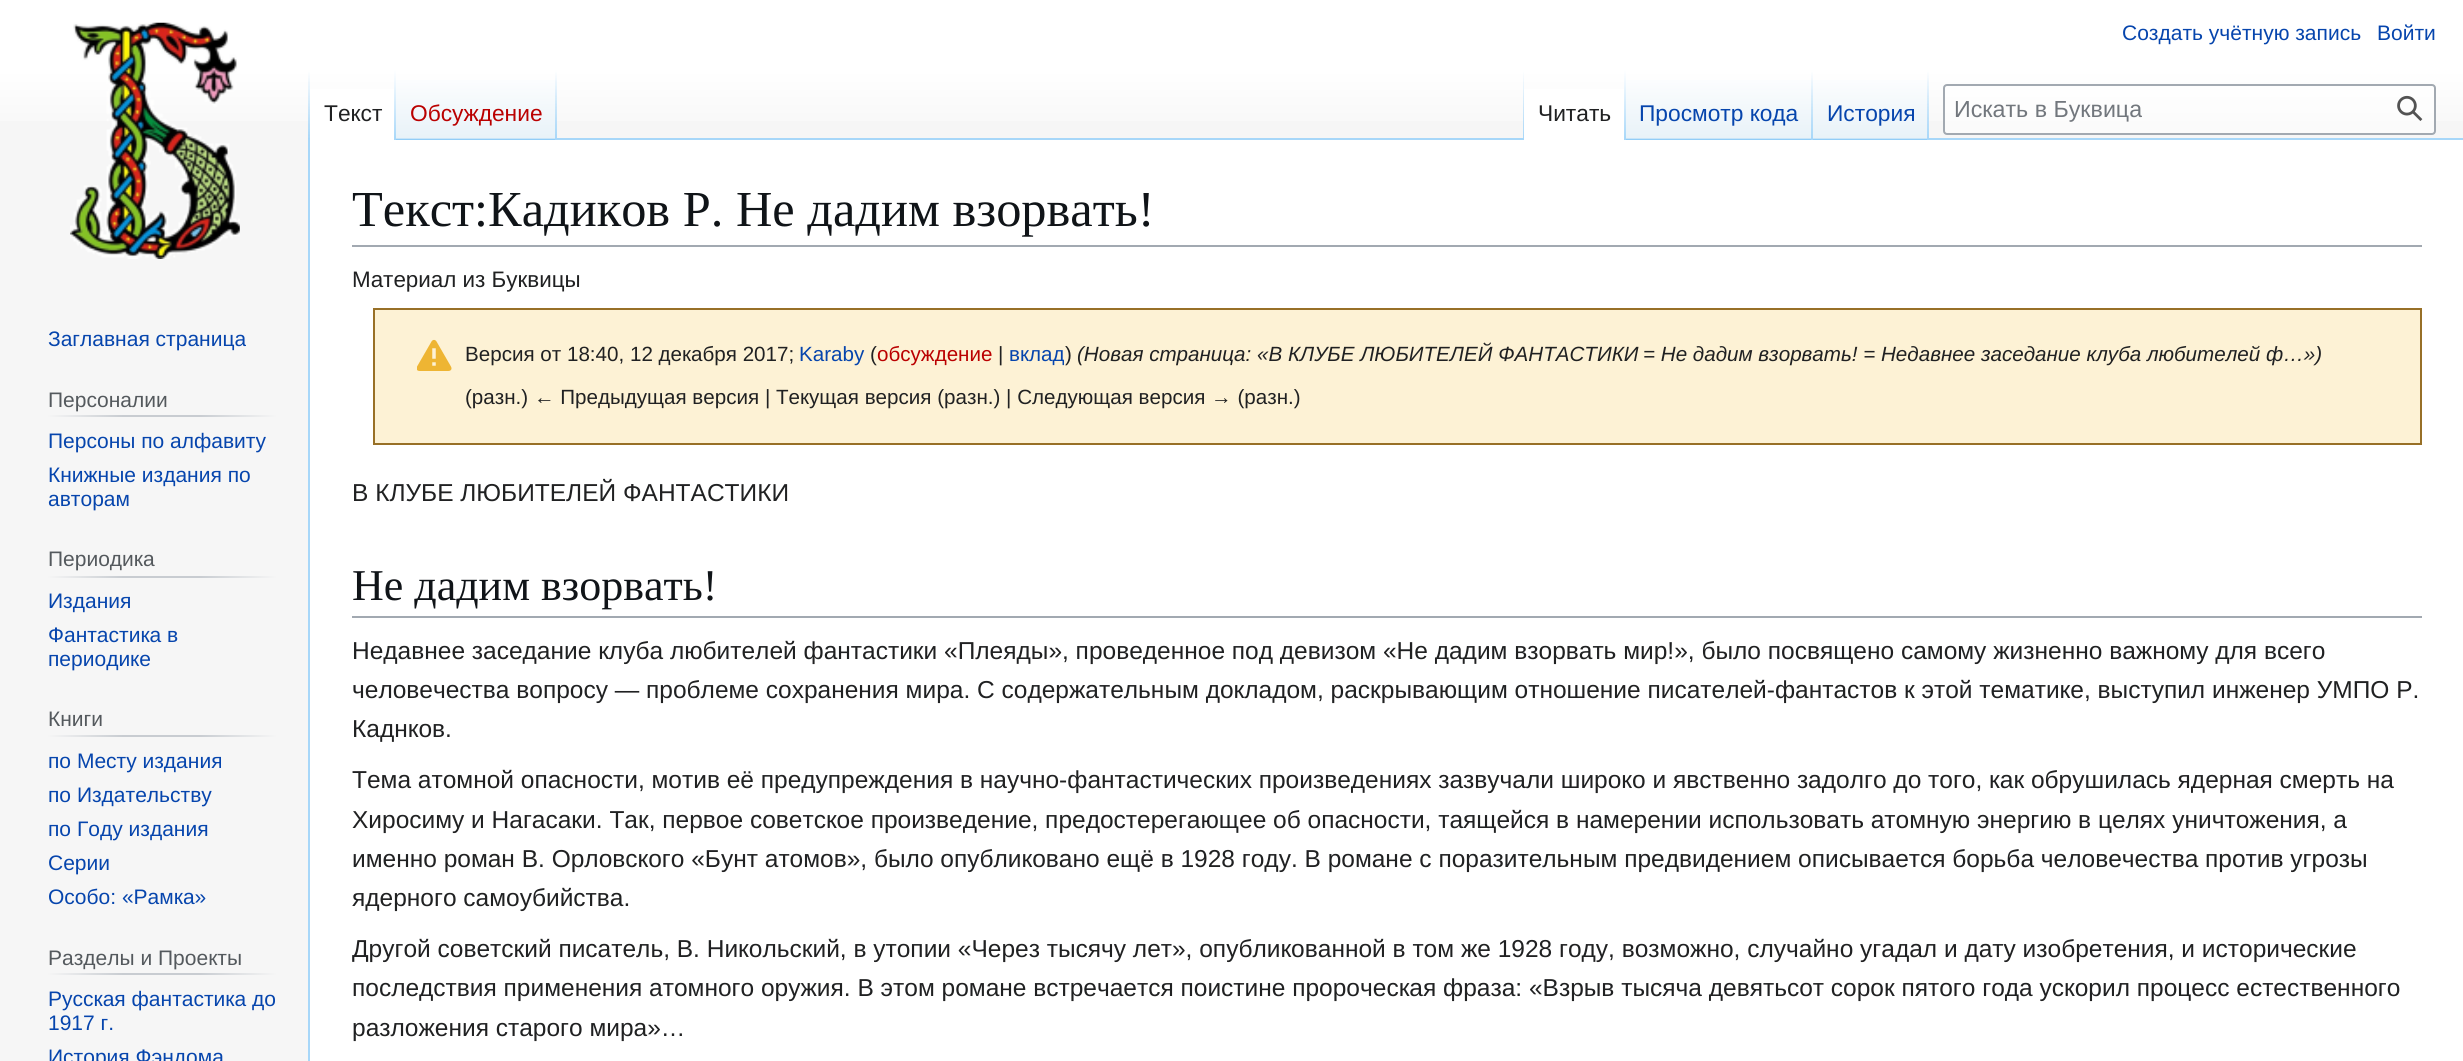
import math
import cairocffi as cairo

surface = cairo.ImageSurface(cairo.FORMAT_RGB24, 2463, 1061)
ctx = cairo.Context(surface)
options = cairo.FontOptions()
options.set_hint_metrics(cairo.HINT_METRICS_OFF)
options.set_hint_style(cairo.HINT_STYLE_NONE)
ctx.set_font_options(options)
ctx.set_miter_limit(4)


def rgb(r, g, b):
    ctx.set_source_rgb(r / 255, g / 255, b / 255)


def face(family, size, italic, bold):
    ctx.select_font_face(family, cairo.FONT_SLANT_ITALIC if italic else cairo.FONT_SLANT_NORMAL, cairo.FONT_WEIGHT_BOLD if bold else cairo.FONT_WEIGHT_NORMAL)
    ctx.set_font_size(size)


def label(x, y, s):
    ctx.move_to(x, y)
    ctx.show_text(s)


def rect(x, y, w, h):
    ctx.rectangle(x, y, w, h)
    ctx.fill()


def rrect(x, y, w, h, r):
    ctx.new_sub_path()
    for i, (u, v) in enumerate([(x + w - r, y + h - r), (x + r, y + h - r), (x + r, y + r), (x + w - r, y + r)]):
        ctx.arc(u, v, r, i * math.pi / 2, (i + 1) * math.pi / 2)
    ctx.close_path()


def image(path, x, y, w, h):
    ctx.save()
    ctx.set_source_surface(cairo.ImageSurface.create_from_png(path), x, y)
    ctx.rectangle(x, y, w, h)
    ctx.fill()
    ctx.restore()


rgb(246, 246, 246)
ctx.paint()
gradient = cairo.LinearGradient(1232, 0, 1232, 140)
gradient.add_color_stop_rgba(0.5, 1, 1, 1, 1)
gradient.add_color_stop_rgba(1, 0.965, 0.965, 0.965, 1)
ctx.set_source(gradient)
rect(0, 0, 2463, 121)
face('Liberation Sans', 21, 0, 0)
rgb(6, 69, 173)
label(2122, 40, 'Создать учётную запись')
label(2377, 40, 'Войти')
rgb(167, 215, 249)
rect(308, 138, 2, 923)
gradient = cairo.LinearGradient(309, 70, 309, 140)
gradient.add_color_stop_rgba(0, 0.655, 0.843, 0.976, 0)
gradient.add_color_stop_rgba(1, 0.655, 0.843, 0.976, 1)
ctx.set_source(gradient)
rect(308, 70, 2, 70)
rgb(255, 255, 255)
rect(310, 89, 84, 51)
gradient = cairo.LinearGradient(395, 70, 395, 140)
gradient.add_color_stop_rgba(0, 1, 1, 1, 1)
gradient.add_color_stop_rgba(1, 0.655, 0.843, 0.976, 1)
ctx.set_source(gradient)
rect(394, 70, 2, 70)
face('Liberation Sans', 22.75, 0, 0)
rgb(32, 33, 34)
label(324, 121, 'Текст')
gradient = cairo.LinearGradient(476, 140, 476, 70)
gradient.add_color_stop_rgba(0, 0.467, 0.757, 0.965, 1)
gradient.add_color_stop_rgba(0.03, 0.91, 0.949, 0.973, 1)
gradient.add_color_stop_rgba(1, 1, 1, 1, 1)
ctx.set_source(gradient)
rect(396, 80, 161, 60)
gradient = cairo.LinearGradient(556, 70, 556, 140)
gradient.add_color_stop_rgba(0, 0.655, 0.843, 0.976, 0)
gradient.add_color_stop_rgba(1, 0.655, 0.843, 0.976, 1)
ctx.set_source(gradient)
rect(555, 70, 2, 70)
rgb(186, 0, 0)
label(410, 121, 'Обсуждение')
rgb(167, 215, 249)
rect(557, 138, 1906, 2)
gradient = cairo.LinearGradient(1523, 70, 1523, 140)
gradient.add_color_stop_rgba(0, 0.655, 0.843, 0.976, 0)
gradient.add_color_stop_rgba(1, 0.655, 0.843, 0.976, 1)
ctx.set_source(gradient)
rect(1523, 70, 1, 70)
rgb(255, 255, 255)
rect(1524, 89, 100, 51)
gradient = cairo.LinearGradient(1625, 70, 1625, 140)
gradient.add_color_stop_rgba(0, 1, 1, 1, 1)
gradient.add_color_stop_rgba(1, 0.655, 0.843, 0.976, 1)
ctx.set_source(gradient)
rect(1624, 70, 2, 70)
rgb(32, 33, 34)
label(1538, 121, 'Читать')
gradient = cairo.LinearGradient(1719, 140, 1719, 70)
gradient.add_color_stop_rgba(0, 0.467, 0.757, 0.965, 1)
gradient.add_color_stop_rgba(0.03, 0.91, 0.949, 0.973, 1)
gradient.add_color_stop_rgba(1, 1, 1, 1, 1)
ctx.set_source(gradient)
rect(1626, 80, 187, 60)
gradient = cairo.LinearGradient(1812, 70, 1812, 140)
gradient.add_color_stop_rgba(0, 0.655, 0.843, 0.976, 0)
gradient.add_color_stop_rgba(1, 0.655, 0.843, 0.976, 1)
ctx.set_source(gradient)
rect(1811, 70, 2, 70)
rgb(6, 69, 173)
label(1639, 121, 'Просмотр кода')
gradient = cairo.LinearGradient(1871, 140, 1871, 70)
gradient.add_color_stop_rgba(0, 0.467, 0.757, 0.965, 1)
gradient.add_color_stop_rgba(0.03, 0.91, 0.949, 0.973, 1)
gradient.add_color_stop_rgba(1, 1, 1, 1, 1)
ctx.set_source(gradient)
rect(1813, 80, 116, 60)
gradient = cairo.LinearGradient(1928, 70, 1928, 140)
gradient.add_color_stop_rgba(0, 0.655, 0.843, 0.976, 0)
gradient.add_color_stop_rgba(1, 0.655, 0.843, 0.976, 1)
ctx.set_source(gradient)
rect(1927, 70, 2, 70)
rgb(6, 69, 173)
label(1827, 121, 'История')
ctx.set_source_rgba(1, 1, 1, 0.5)
rrect(1944, 85, 491, 49, 3)
ctx.fill_preserve()
rgb(162, 169, 177)
ctx.stroke()
face('Liberation Sans', 23.25, 0, 0)
rgb(114, 119, 125)
label(1954, 117, 'Искать в Буквица')
image('image0.png', 2397, 95, 26, 26)
image('image1.png', 70, 22, 170, 237)
face('Liberation Sans', 21, 0, 0)
rgb(6, 69, 173)
label(48, 346, 'Заглавная страница')
gradient = cairo.LinearGradient(47, 416, 277, 416)
gradient.add_color_stop_rgba(0, 0.965, 0.965, 0.965, 1)
gradient.add_color_stop_rgba(0.33, 0.784, 0.8, 0.82, 1)
gradient.add_color_stop_rgba(0.66, 0.784, 0.8, 0.82, 1)
gradient.add_color_stop_rgba(1, 0.965, 0.965, 0.965, 1)
ctx.set_source(gradient)
rect(47, 415, 230, 2)
rgb(84, 89, 93)
label(48, 407, 'Персоналии')
rgb(6, 69, 173)
label(48, 448, 'Персоны по алфавиту')
label(48, 482, 'Книжные издания по')
label(48, 506, 'авторам')
gradient = cairo.LinearGradient(47, 577, 277, 577)
gradient.add_color_stop_rgba(0, 0.965, 0.965, 0.965, 1)
gradient.add_color_stop_rgba(0.33, 0.784, 0.8, 0.82, 1)
gradient.add_color_stop_rgba(0.66, 0.784, 0.8, 0.82, 1)
gradient.add_color_stop_rgba(1, 0.965, 0.965, 0.965, 1)
ctx.set_source(gradient)
rect(47, 576, 230, 2)
rgb(84, 89, 93)
label(48, 566, 'Периодика')
rgb(6, 69, 173)
label(48, 608, 'Издания')
label(48, 642, 'Фантастика в')
label(48, 666, 'периодике')
gradient = cairo.LinearGradient(47, 736, 277, 736)
gradient.add_color_stop_rgba(0, 0.965, 0.965, 0.965, 1)
gradient.add_color_stop_rgba(0.33, 0.784, 0.8, 0.82, 1)
gradient.add_color_stop_rgba(0.66, 0.784, 0.8, 0.82, 1)
gradient.add_color_stop_rgba(1, 0.965, 0.965, 0.965, 1)
ctx.set_source(gradient)
rect(47, 735, 230, 2)
rgb(84, 89, 93)
label(48, 726, 'Книги')
rgb(6, 69, 173)
label(48, 768, 'по Месту издания')
label(48, 802, 'по Издательству')
label(48, 836, 'по Году издания')
label(48, 870, 'Серии')
label(48, 904, 'Особо: «Рамка»')
gradient = cairo.LinearGradient(47, 974, 277, 974)
gradient.add_color_stop_rgba(0, 0.965, 0.965, 0.965, 1)
gradient.add_color_stop_rgba(0.33, 0.784, 0.8, 0.82, 1)
gradient.add_color_stop_rgba(0.66, 0.784, 0.8, 0.82, 1)
gradient.add_color_stop_rgba(1, 0.965, 0.965, 0.965, 1)
ctx.set_source(gradient)
rect(47, 973, 230, 2)
rgb(84, 89, 93)
label(48, 965, 'Разделы и Проекты')
rgb(6, 69, 173)
label(48, 1006, 'Русская фантастика до')
label(48, 1030, '1917 г.')
label(48, 1064, 'История Фэндома')
rgb(255, 255, 255)
rect(310, 140, 2153, 921)
rgb(162, 169, 177)
rect(352, 245, 2070, 2)
face('Liberation Serif', 50.4, 0, 0)
rgb(16, 20, 24)
label(352, 226, 'Текст:Кадиков Р. Не дадим взорвать!')
face('Liberation Sans', 22.4, 0, 0)
rgb(32, 33, 34)
label(352, 287, 'Материал из Буквицы')
rgb(253, 242, 213)
ctx.rectangle(374, 309, 2047, 135)
ctx.fill_preserve()
rgb(152, 112, 39)
ctx.stroke()
image('image2.png', 417, 339, 35, 32)
face('Liberation Sans', 20.6, 0, 0)
rgb(32, 33, 34)
label(465, 361, 'Версия от 18:40, 12 декабря 2017;')
rgb(6, 69, 173)
label(799, 361, 'Karaby')
rgb(32, 33, 34)
label(870, 361, '(')
rgb(186, 0, 0)
label(877, 361, 'обсуждение')
rgb(32, 33, 34)
label(998, 361, '|')
rgb(6, 69, 173)
label(1009, 361, 'вклад')
rgb(32, 33, 34)
label(1065, 361, ')')
face('Liberation Sans', 20.6, 1, 0)
label(1077, 361, '(Новая страница: «В КЛУБЕ ЛЮБИТЕЛЕЙ ФАНТАСТИКИ')
label(1643, 361, '= Не дадим взорвать! = Недавнее заседание клуба любителей ф…»)')
face('Liberation Sans', 20.6, 0, 0)
label(465, 404, '(разн.) ← Предыдущая версия | Текущая версия (разн.) | Следующая версия → (разн.)')
face('Liberation Sans', 24.5, 0, 0)
label(352, 501, 'В КЛУБЕ ЛЮБИТЕЛЕЙ ФАНТАСТИКИ')
rgb(162, 169, 177)
rect(352, 616, 2070, 2)
face('Liberation Serif', 44, 0, 0)
rgb(16, 20, 24)
label(352, 600, 'Не дадим взорвать!')
face('Liberation Sans', 24.5, 0, 0)
rgb(32, 33, 34)
label(352, 659, 'Недавнее заседание клуба любителей фантастики «Плеяды», проведенное под девизом «Не дадим взорвать мир!», было посвящено самому жизненно важному для всего')
label(352, 698, 'человечества вопросу — проблеме сохранения мира. С содержательным докладом, раскрывающим отношение писателей-фантастов к этой тематике, выступил инженер УМПО Р.')
label(352, 737, 'Каднков.')
label(352, 788, 'Тема атомной опасности, мотив её предупреждения в научно-фантастических произведениях зазвучали широко и явственно задолго до того, как обрушилась ядерная смерть на')
label(352, 828, 'Хиросиму и Нагасаки. Так, первое советское произведение, предостерегающее об опасности, таящейся в намерении использовать атомную энергию в целях уничтожения, а')
label(352, 867, 'именно роман В. Орловского «Бунт атомов», было опубликовано ещё в 1928 году. В романе с поразительным предвидением описывается борьба человечества против угрозы')
label(352, 906, 'ядерного самоубийства.')
label(352, 957, 'Другой советский писатель, В. Никольский, в утопии «Через тысячу лет», опубликованной в том же 1928 году, возможно, случайно угадал и дату изобретения, и исторические')
label(352, 996, 'последствия применения атомного оружия. В этом романе встречается поистине пророческая фраза: «Взрыв тысяча девятьсот сорок пятого года ускорил процесс естественного')
label(352, 1036, 'разложения старого мира»…')
surface.write_to_png('render.png')
